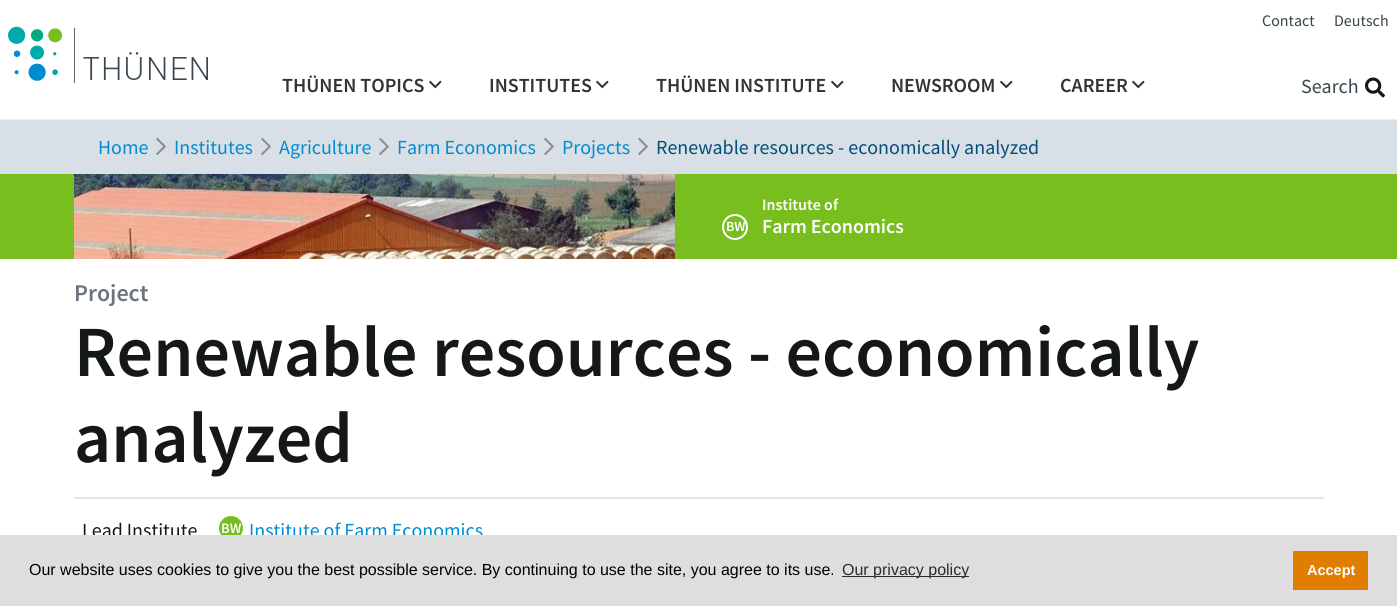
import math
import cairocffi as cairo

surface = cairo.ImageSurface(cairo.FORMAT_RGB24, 1397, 606)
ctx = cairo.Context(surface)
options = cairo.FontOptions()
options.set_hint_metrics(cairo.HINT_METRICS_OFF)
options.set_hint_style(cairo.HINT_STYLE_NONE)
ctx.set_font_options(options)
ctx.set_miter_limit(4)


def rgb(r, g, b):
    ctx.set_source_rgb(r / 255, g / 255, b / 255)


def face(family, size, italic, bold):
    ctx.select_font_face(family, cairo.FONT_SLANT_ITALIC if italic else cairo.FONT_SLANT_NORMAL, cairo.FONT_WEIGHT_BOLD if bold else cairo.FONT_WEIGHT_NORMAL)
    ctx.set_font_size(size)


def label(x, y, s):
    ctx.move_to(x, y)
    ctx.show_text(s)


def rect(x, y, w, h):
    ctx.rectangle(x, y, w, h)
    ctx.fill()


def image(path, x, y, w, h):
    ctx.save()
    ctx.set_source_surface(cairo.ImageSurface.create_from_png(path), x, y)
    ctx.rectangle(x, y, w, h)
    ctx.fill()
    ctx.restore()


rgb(255, 255, 255)
ctx.paint()
rgb(238, 238, 238)
rect(0, 119, 1397, 1)
image('image0.png', 8, 26, 200, 57)
face('Source Sans Pro', 16, 0, 0)
rgb(55, 70, 75)
label(1262, 26, 'Contact')
label(1334, 26, 'Deutsch')
face('Source Sans Pro SemiBold', 20, 0, 0)
rgb(51, 51, 51)
label(282, 92, 'THÜNEN TOPICS')
image('image1.png', 429, 80, 13, 9)
label(489, 92, 'INSTITUTES')
image('image1.png', 596, 80, 13, 9)
label(656, 92, 'THÜNEN INSTITUTE')
image('image1.png', 831, 80, 13, 9)
label(891, 92, 'NEWSROOM')
image('image1.png', 1000, 80, 13, 9)
label(1060, 92, 'CAREER')
image('image1.png', 1132, 80, 13, 9)
face('Source Sans Pro', 20, 0, 0)
rgb(55, 70, 75)
label(1301, 93, 'Search')
image('image2.png', 1365, 77, 20, 21)
rgb(217, 223, 230)
rect(0, 120, 1397, 54)
rgb(0, 140, 210)
label(98, 154, 'Home')
image('image3.png', 156, 137, 10, 19)
label(174, 154, 'Institutes')
image('image3.png', 261, 137, 10, 19)
label(279, 154, 'Agriculture')
image('image3.png', 379, 137, 10, 19)
label(397, 154, 'Farm Economics')
image('image3.png', 544, 137, 10, 19)
label(562, 154, 'Projects')
image('image3.png', 638, 137, 10, 19)
rgb(0, 80, 120)
label(656, 154, 'Renewable resources - economically analyzed')
rgb(120, 190, 30)
rect(0, 174, 1397, 85)
image('image4.png', 74, 174, 601, 85)
face('Source Sans Pro SemiBold', 16, 0, 0)
rgb(255, 255, 255)
label(762, 210, 'Institute of')
ctx.new_path()
ctx.arc(735, 227, 12, 0, 2 * math.pi)
ctx.stroke()
face('Source Sans Pro SemiBold', 14, 0, 0)
label(726, 231, 'BW')
face('Source Sans Pro SemiBold', 20, 0, 0)
label(762, 233, 'Farm Economics')
face('Source Sans Pro SemiBold', 24, 0, 0)
rgb(108, 117, 125)
label(74, 301, 'Project')
face('Source Sans Pro SemiBold', 72, 0, 0)
rgb(21, 24, 25)
label(74, 376, 'Renewable resources - economically')
label(74, 462, 'analyzed')
rgb(230, 230, 230)
rect(74, 497, 1250, 2)
face('Source Sans Pro', 20, 0, 0)
rgb(21, 24, 25)
label(82, 537, 'Lead Institute')
rgb(120, 190, 30)
ctx.new_path()
ctx.arc(231, 528, 13, 0, 2 * math.pi)
ctx.fill_preserve()
rgb(255, 255, 255)
ctx.stroke()
face('Source Sans Pro SemiBold', 14.5, 0, 0)
label(221, 533, 'BW')
face('Source Sans Pro', 20, 0, 0)
rgb(0, 140, 210)
label(249, 537, 'Institute of Farm Economics')
rgb(222, 222, 222)
rect(0, 535, 1397, 71)
face('Liberation Sans', 16, 0, 0)
rgb(0, 0, 0)
label(29, 575, 'Our website uses cookies to give you the best possible service. By continuing to use the site, you agree to its use.')
rgb(44, 44, 44)
rect(842, 576, 127, 1)
label(842, 575, 'Our privacy policy')
rgb(225, 125, 0)
rect(1293, 551, 75, 39)
face('Liberation Sans', 14.5, 0, 1)
rgb(255, 255, 255)
label(1307, 575, 'Accept')
surface.write_to_png('render.png')
